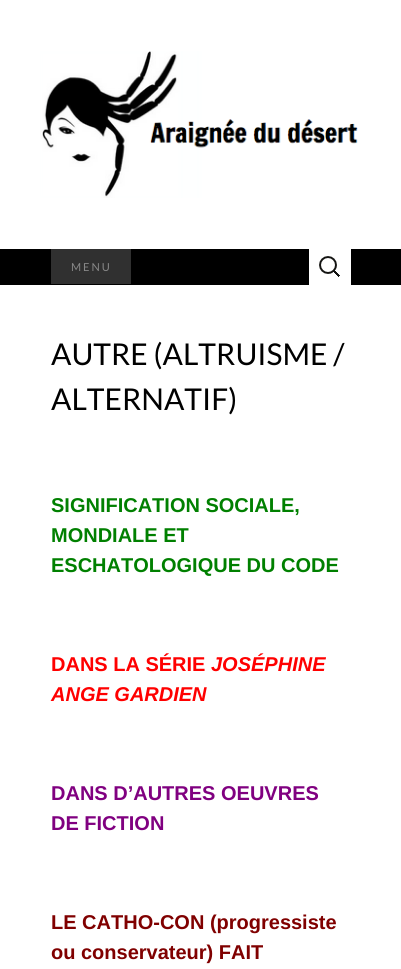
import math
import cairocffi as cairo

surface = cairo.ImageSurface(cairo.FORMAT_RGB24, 401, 969)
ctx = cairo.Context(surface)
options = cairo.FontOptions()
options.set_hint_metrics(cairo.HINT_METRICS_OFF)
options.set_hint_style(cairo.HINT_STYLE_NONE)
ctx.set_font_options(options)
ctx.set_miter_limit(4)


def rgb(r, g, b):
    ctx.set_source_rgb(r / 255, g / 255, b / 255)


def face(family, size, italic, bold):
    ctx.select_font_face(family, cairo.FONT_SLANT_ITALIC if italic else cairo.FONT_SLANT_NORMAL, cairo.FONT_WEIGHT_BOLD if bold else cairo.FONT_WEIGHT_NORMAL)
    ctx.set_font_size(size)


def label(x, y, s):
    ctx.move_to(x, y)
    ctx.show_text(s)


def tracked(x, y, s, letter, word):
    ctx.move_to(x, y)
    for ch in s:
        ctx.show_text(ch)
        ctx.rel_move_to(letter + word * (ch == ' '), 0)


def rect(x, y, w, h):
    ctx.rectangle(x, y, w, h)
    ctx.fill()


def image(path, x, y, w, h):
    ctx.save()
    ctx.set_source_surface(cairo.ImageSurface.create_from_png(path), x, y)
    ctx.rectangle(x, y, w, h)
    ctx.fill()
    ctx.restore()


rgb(255, 255, 255)
ctx.paint()
image('image0.png', 40, 51, 318, 147)
rgb(0, 0, 0)
rect(0, 249, 401, 36)
rgb(48, 48, 48)
rect(51, 249, 80, 35)
face('Lato', 11, 0, 0)
rgb(136, 136, 136)
tracked(71, 271, 'MENU', 2, 0)
rgb(255, 255, 255)
rect(309, 249, 42, 36)
image('image1.png', 319, 256, 21, 21)
face('Lato', 30, 0, 0)
rgb(0, 0, 0)
label(51, 365, 'AUTRE (ALTRUISME /')
label(51, 410, 'ALTERNATIF)')
face('Liberation Sans', 20, 0, 1)
rgb(0, 128, 0)
label(51, 512, 'SIGNIFICATION SOCIALE,')
label(51, 542, 'MONDIALE ET')
label(51, 572, 'ESCHATOLOGIQUE DU CODE')
rgb(255, 0, 0)
label(51, 671, 'DANS LA SÉRIE')
face('Liberation Sans', 20, 1, 1)
label(211, 671, 'JOSÉPHINE')
label(51, 701, 'ANGE GARDIEN')
face('Liberation Sans', 20, 0, 1)
rgb(128, 0, 128)
label(51, 800, 'DANS D’AUTRES OEUVRES')
label(51, 830, 'DE FICTION')
rgb(128, 0, 0)
label(51, 929, 'LE CATHO-CON (progressiste')
label(51, 959, 'ou conservateur) FAIT')
surface.write_to_png('render.png')
